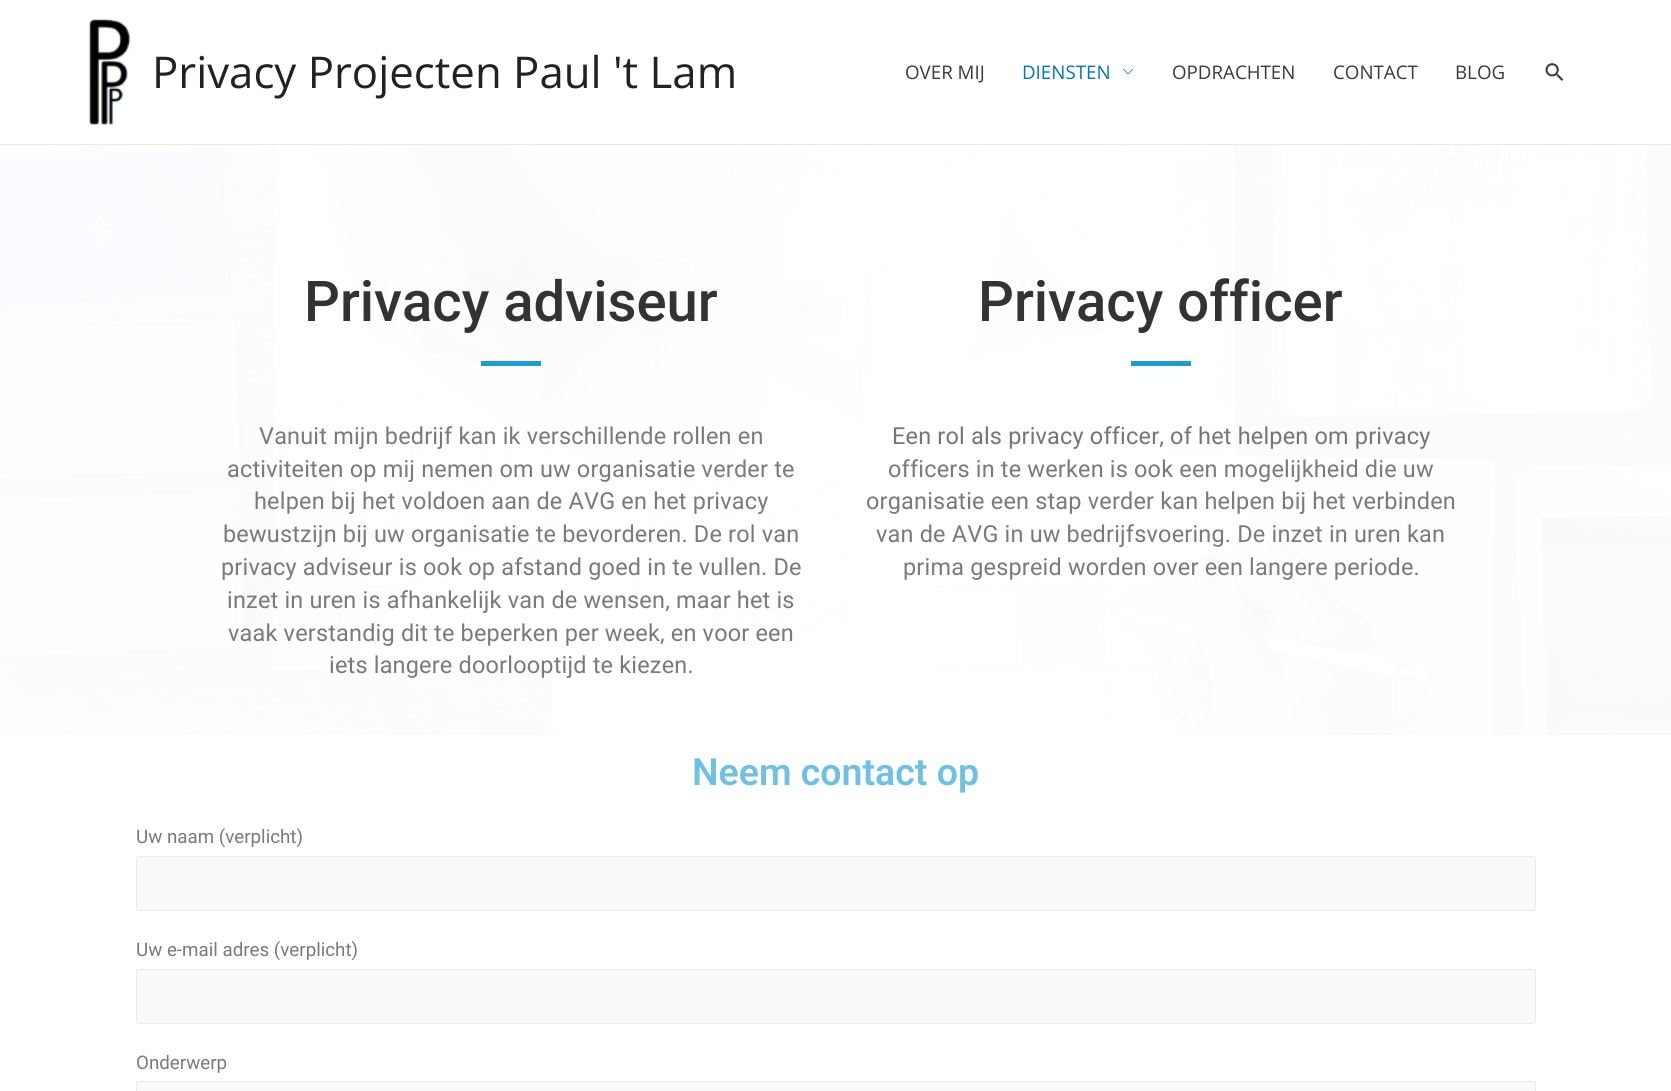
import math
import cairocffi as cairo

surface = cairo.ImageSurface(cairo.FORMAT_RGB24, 1671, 1091)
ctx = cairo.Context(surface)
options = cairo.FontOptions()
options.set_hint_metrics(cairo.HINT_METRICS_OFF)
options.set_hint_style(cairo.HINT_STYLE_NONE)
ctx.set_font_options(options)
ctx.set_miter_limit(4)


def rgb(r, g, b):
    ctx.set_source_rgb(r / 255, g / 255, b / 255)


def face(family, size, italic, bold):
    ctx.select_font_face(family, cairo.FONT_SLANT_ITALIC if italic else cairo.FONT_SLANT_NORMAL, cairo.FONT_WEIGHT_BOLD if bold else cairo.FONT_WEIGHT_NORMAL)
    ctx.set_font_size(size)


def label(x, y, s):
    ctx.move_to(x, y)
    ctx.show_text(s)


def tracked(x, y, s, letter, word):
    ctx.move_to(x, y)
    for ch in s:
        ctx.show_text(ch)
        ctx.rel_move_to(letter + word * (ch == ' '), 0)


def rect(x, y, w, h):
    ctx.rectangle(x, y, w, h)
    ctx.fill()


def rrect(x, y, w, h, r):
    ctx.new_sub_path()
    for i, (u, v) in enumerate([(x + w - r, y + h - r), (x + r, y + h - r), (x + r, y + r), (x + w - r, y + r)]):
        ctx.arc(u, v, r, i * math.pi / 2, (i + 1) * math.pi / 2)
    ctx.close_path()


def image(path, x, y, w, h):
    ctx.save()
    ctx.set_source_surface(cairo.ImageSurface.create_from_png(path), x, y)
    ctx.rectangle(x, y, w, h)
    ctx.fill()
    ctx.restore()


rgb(255, 255, 255)
ctx.paint()
rgb(234, 234, 234)
rect(0, 144, 1671, 1)
image('image0.png', 88, 18, 43, 107)
face('Open Sans', 43.75, 0, 0)
rgb(34, 34, 34)
label(152, 88, 'Privacy Projecten Paul \'t Lam')
face('Open Sans', 18.75, 0, 0)
rgb(58, 58, 58)
label(905, 79, 'OVER MIJ')
rgb(2, 116, 190)
label(1022, 79, 'DIENSTEN')
image('image1.png', 1123, 68, 11, 7)
rgb(58, 58, 58)
label(1172, 79, 'OPDRACHTEN')
label(1333, 79, 'CONTACT')
label(1455, 79, 'BLOG')
image('image2.png', 1545, 63, 19, 18)
image('image3.png', 0, 145, 1671, 590)
face('Roboto Medium', 56.25, 0, 0)
rgb(51, 51, 50)
label(304, 321, 'Privacy adviseur')
rgb(27, 157, 211)
rect(481, 361, 60, 5)
face('Roboto', 23.45, 0, 0)
rgb(122, 122, 122)
tracked(259, 444, 'Vanuit mijn bedrijf kan ik verschillende rollen en', 0.2, 0)
tracked(227, 477, 'activiteiten op mij nemen om uw organisatie verder te', 0.2, 0)
tracked(254, 509, 'helpen bij het voldoen aan de AVG en het privacy', 0.2, 0)
tracked(223, 542, 'bewustzijn bij uw organisatie te bevorderen. De rol van', 0.2, 0)
tracked(221, 575, 'privacy adviseur is ook op afstand goed in te vullen. De', 0.2, 0)
tracked(227, 608, 'inzet in uren is afhankelijk van de wensen, maar het is', 0.2, 0)
tracked(228, 641, 'vaak verstandig dit te beperken per week, en voor een', 0.2, 0)
tracked(329, 673, 'iets langere doorlooptijd te kiezen.', 0.2, 0)
face('Roboto Medium', 56.25, 0, 0)
rgb(51, 51, 50)
label(978, 321, 'Privacy officer')
rgb(27, 157, 211)
rect(1131, 361, 60, 5)
face('Roboto', 23.45, 0, 0)
rgb(117, 117, 116)
tracked(892, 444, 'Een rol als privacy officer, of het helpen om privacy', 0.2, 0)
rgb(122, 122, 122)
tracked(888, 477, 'officers in te werken is ook een mogelijkheid die uw', 0.2, 0)
tracked(866, 509, 'organisatie een stap verder kan helpen bij het verbinden', 0.2, 0)
tracked(876, 542, 'van de AVG in uw bedrijfsvoering. De inzet in uren kan', 0.2, 0)
tracked(903, 575, 'prima gespreid worden over een langere periode.', 0.2, 0)
face('Roboto SemiBold', 37.5, 0, 0)
rgb(110, 193, 228)
label(692, 785, 'Neem contact op')
face('Roboto', 18.75, 0, 0)
rgb(122, 122, 122)
label(136, 843, 'Uw naam (verplicht)')
rgb(250, 250, 250)
rrect(136.5, 856.5, 1399, 54, 2)
ctx.fill_preserve()
rgb(234, 234, 234)
ctx.set_line_width(1)
ctx.stroke()
rgb(122, 122, 122)
label(136, 956, 'Uw e-mail adres (verplicht)')
rgb(250, 250, 250)
rrect(136.5, 969.5, 1399, 54, 2)
ctx.fill_preserve()
rgb(234, 234, 234)
ctx.stroke()
rgb(122, 122, 122)
label(136, 1069, 'Onderwerp')
rgb(250, 250, 250)
rrect(136.5, 1081.5, 1399, 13, 2)
ctx.fill_preserve()
rgb(234, 234, 234)
ctx.stroke()
surface.write_to_png('render.png')
